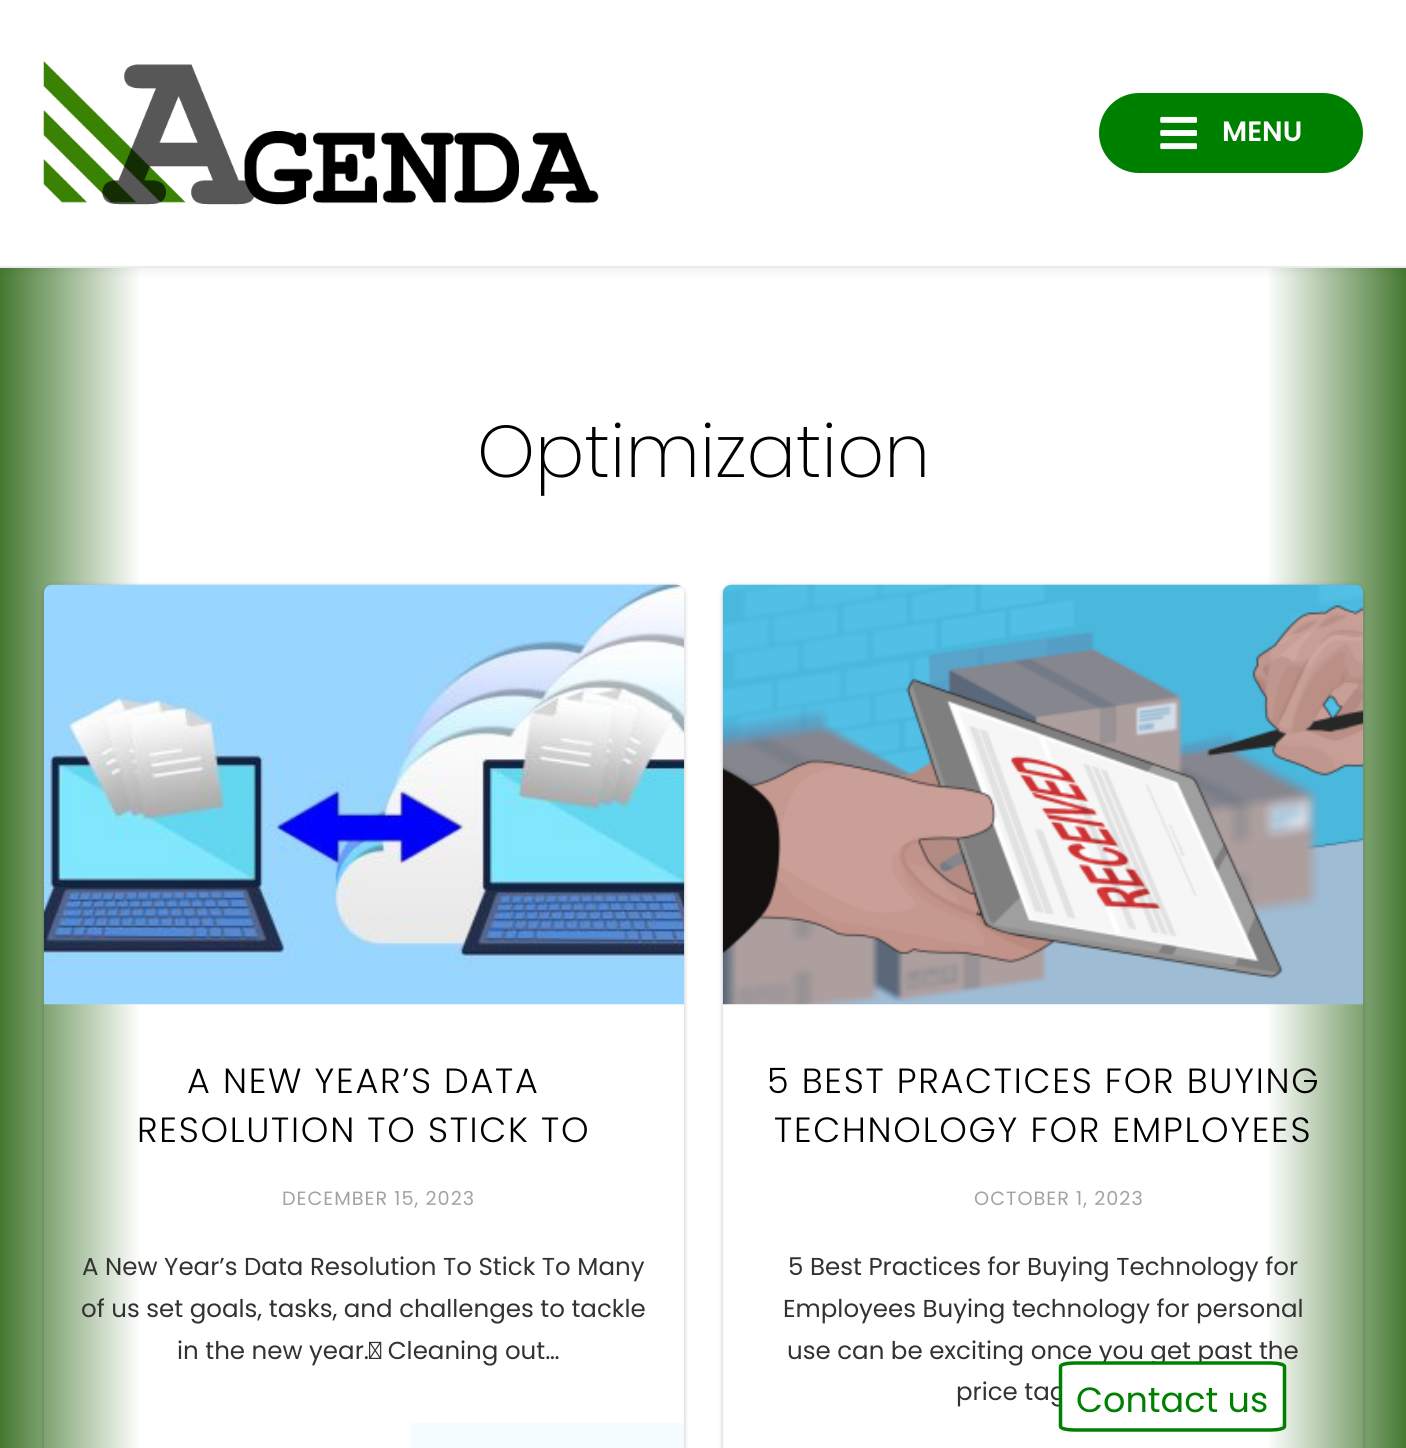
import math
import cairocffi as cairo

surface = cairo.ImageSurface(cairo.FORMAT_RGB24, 1406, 1448)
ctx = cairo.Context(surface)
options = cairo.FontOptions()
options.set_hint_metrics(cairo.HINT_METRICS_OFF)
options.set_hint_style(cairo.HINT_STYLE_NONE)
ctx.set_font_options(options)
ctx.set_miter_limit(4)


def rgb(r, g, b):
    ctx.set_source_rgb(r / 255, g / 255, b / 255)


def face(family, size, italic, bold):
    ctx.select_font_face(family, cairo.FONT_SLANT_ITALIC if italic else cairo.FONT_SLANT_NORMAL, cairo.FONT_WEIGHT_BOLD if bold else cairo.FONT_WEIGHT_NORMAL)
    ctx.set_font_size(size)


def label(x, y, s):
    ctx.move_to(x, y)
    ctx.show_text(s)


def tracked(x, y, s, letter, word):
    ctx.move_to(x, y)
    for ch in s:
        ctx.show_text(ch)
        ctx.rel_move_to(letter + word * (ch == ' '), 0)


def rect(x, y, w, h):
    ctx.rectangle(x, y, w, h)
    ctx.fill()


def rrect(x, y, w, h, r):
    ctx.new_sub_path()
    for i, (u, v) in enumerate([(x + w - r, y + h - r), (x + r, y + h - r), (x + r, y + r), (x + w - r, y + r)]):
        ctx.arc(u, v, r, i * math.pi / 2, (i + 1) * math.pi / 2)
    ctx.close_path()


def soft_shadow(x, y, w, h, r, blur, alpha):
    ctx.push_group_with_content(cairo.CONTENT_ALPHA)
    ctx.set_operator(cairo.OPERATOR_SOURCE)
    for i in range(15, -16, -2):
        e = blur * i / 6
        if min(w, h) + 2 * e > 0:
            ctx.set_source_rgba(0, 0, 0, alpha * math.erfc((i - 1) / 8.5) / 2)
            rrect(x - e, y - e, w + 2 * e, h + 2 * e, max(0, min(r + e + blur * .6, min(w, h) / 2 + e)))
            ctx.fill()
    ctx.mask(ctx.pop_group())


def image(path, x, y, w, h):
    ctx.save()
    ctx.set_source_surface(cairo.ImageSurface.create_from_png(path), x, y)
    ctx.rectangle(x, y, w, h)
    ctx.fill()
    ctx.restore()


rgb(255, 255, 255)
ctx.paint()
gradient = cairo.LinearGradient(0, 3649, 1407, 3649)
gradient.add_color_stop_rgba(0, 0.267, 0.471, 0.192, 1)
gradient.add_color_stop_rgba(0.1, 1, 1, 1, 1)
gradient.add_color_stop_rgba(0.9, 1, 1, 1, 1)
gradient.add_color_stop_rgba(1, 0.267, 0.471, 0.192, 1)
ctx.set_source(gradient)
rect(0, 268, 1406, 1180)
rgb(0, 0, 0)
soft_shadow(5, 0, 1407, 268, 0, 6, 0.1)
rgb(255, 255, 255)
rect(0, 0, 1406, 266)
rgb(235, 235, 235)
rect(0, 266, 1406, 2)
image('image0.png', 43, 61, 556, 144)
rgb(0, 128, 0)
rrect(1099, 93, 264, 80, 40)
ctx.fill()
image('image1.png', 1160, 116, 37, 34)
face('Poppins SemiBold', 28, 0, 0)
rgb(255, 255, 255)
label(1222, 141, 'MENU')
face('Poppins ExtraLight', 73.5, 0, 0)
rgb(0, 0, 0)
label(477, 477, 'Optimization')
ctx.save()
ctx.set_fill_rule(cairo.FILL_RULE_EVEN_ODD)
ctx.new_path()
ctx.move_to(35, 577)
ctx.line_to(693, 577)
ctx.line_to(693, 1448)
ctx.line_to(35, 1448)
ctx.close_path()
ctx.move_to(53, 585)
ctx.line_to(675, 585)
ctx.curve_to(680, 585, 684, 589, 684, 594)
ctx.line_to(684, 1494)
ctx.curve_to(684, 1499, 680, 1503, 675, 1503)
ctx.line_to(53, 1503)
ctx.curve_to(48, 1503, 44, 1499, 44, 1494)
ctx.line_to(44, 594)
ctx.curve_to(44, 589, 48, 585, 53, 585)
ctx.close_path()
ctx.clip()
rgb(0, 0, 0)
soft_shadow(44, 586, 640, 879, 9, 2.5, 0.25)
ctx.restore()
image('image2.png', 43, 584, 642, 421)
face('Poppins Light', 35, 0, 0)
tracked(187, 1093, 'A NEW YEAR’S DATA', 1.75, 0)
tracked(137, 1142, 'RESOLUTION TO STICK TO', 1.75, 0)
face('Poppins', 19.25, 0, 0)
rgb(163, 163, 163)
tracked(282, 1205, 'DECEMBER 15, 2023', 1, 0)
face('Poppins', 24.5, 0, 0)
rgb(50, 50, 50)
label(82, 1275, 'A New Year’s Data Resolution To Stick To Many')
label(81, 1317, 'of us set goals, tasks, and challenges to tackle')
label(177, 1359, 'in the new year.  Cleaning out…')
rgb(245, 252, 255)
rect(410, 1423, 274, 25)
ctx.save()
ctx.set_fill_rule(cairo.FILL_RULE_EVEN_ODD)
ctx.new_path()
ctx.move_to(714, 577)
ctx.line_to(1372, 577)
ctx.line_to(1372, 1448)
ctx.line_to(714, 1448)
ctx.close_path()
ctx.move_to(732, 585)
ctx.line_to(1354, 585)
ctx.curve_to(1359, 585, 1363, 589, 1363, 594)
ctx.line_to(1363, 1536)
ctx.curve_to(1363, 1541, 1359, 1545, 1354, 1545)
ctx.line_to(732, 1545)
ctx.curve_to(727, 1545, 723, 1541, 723, 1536)
ctx.line_to(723, 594)
ctx.curve_to(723, 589, 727, 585, 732, 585)
ctx.close_path()
ctx.clip()
rgb(0, 0, 0)
soft_shadow(723, 586, 640, 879, 9, 2.5, 0.25)
ctx.restore()
image('image3.png', 722, 584, 642, 421)
face('Poppins Light', 35, 0, 0)
rgb(0, 0, 0)
tracked(767, 1093, '5 BEST PRACTICES FOR BUYING', 1.75, 0)
tracked(774, 1142, 'TECHNOLOGY FOR EMPLOYEES', 1.75, 0)
face('Poppins', 19.25, 0, 0)
rgb(163, 163, 163)
tracked(974, 1205, 'OCTOBER 1, 2023', 1, 0)
face('Poppins', 24.5, 0, 0)
rgb(50, 50, 50)
label(788, 1275, '5 Best Practices for Buying Technology for')
label(783, 1317, 'Employees Buying technology for personal')
label(787, 1359, 'use can be exciting once you get past the')
label(956, 1400, 'price tag')
rgb(255, 255, 255)
ctx.new_path()
ctx.move_to(1075, 1362)
ctx.line_to(1270, 1362)
ctx.curve_to(1279, 1362, 1286, 1364, 1286, 1366)
ctx.line_to(1286, 1427)
ctx.curve_to(1286, 1429, 1279, 1432, 1270, 1432)
ctx.line_to(1075, 1432)
ctx.curve_to(1066, 1432, 1059, 1429, 1059, 1427)
ctx.line_to(1059, 1366)
ctx.curve_to(1059, 1364, 1066, 1362, 1075, 1362)
ctx.close_path()
ctx.fill()
ctx.new_path()
ctx.move_to(1074.5, 1363)
ctx.line_to(1270.5, 1363)
ctx.curve_to(1278, 1363, 1284.5, 1364.5, 1284.5, 1366.5)
ctx.line_to(1284.5, 1426.5)
ctx.curve_to(1284.5, 1428.5, 1278, 1430, 1270.5, 1430)
ctx.line_to(1074.5, 1430)
ctx.curve_to(1067, 1430, 1060.5, 1428.5, 1060.5, 1426.5)
ctx.line_to(1060.5, 1366.5)
ctx.curve_to(1060.5, 1364.5, 1067, 1363, 1074.5, 1363)
ctx.close_path()
rgb(0, 128, 0)
ctx.set_line_width(3.5)
ctx.stroke()
face('Poppins', 35, 0, 0)
label(1076, 1412, 'Contact us')
surface.write_to_png('render.png')
